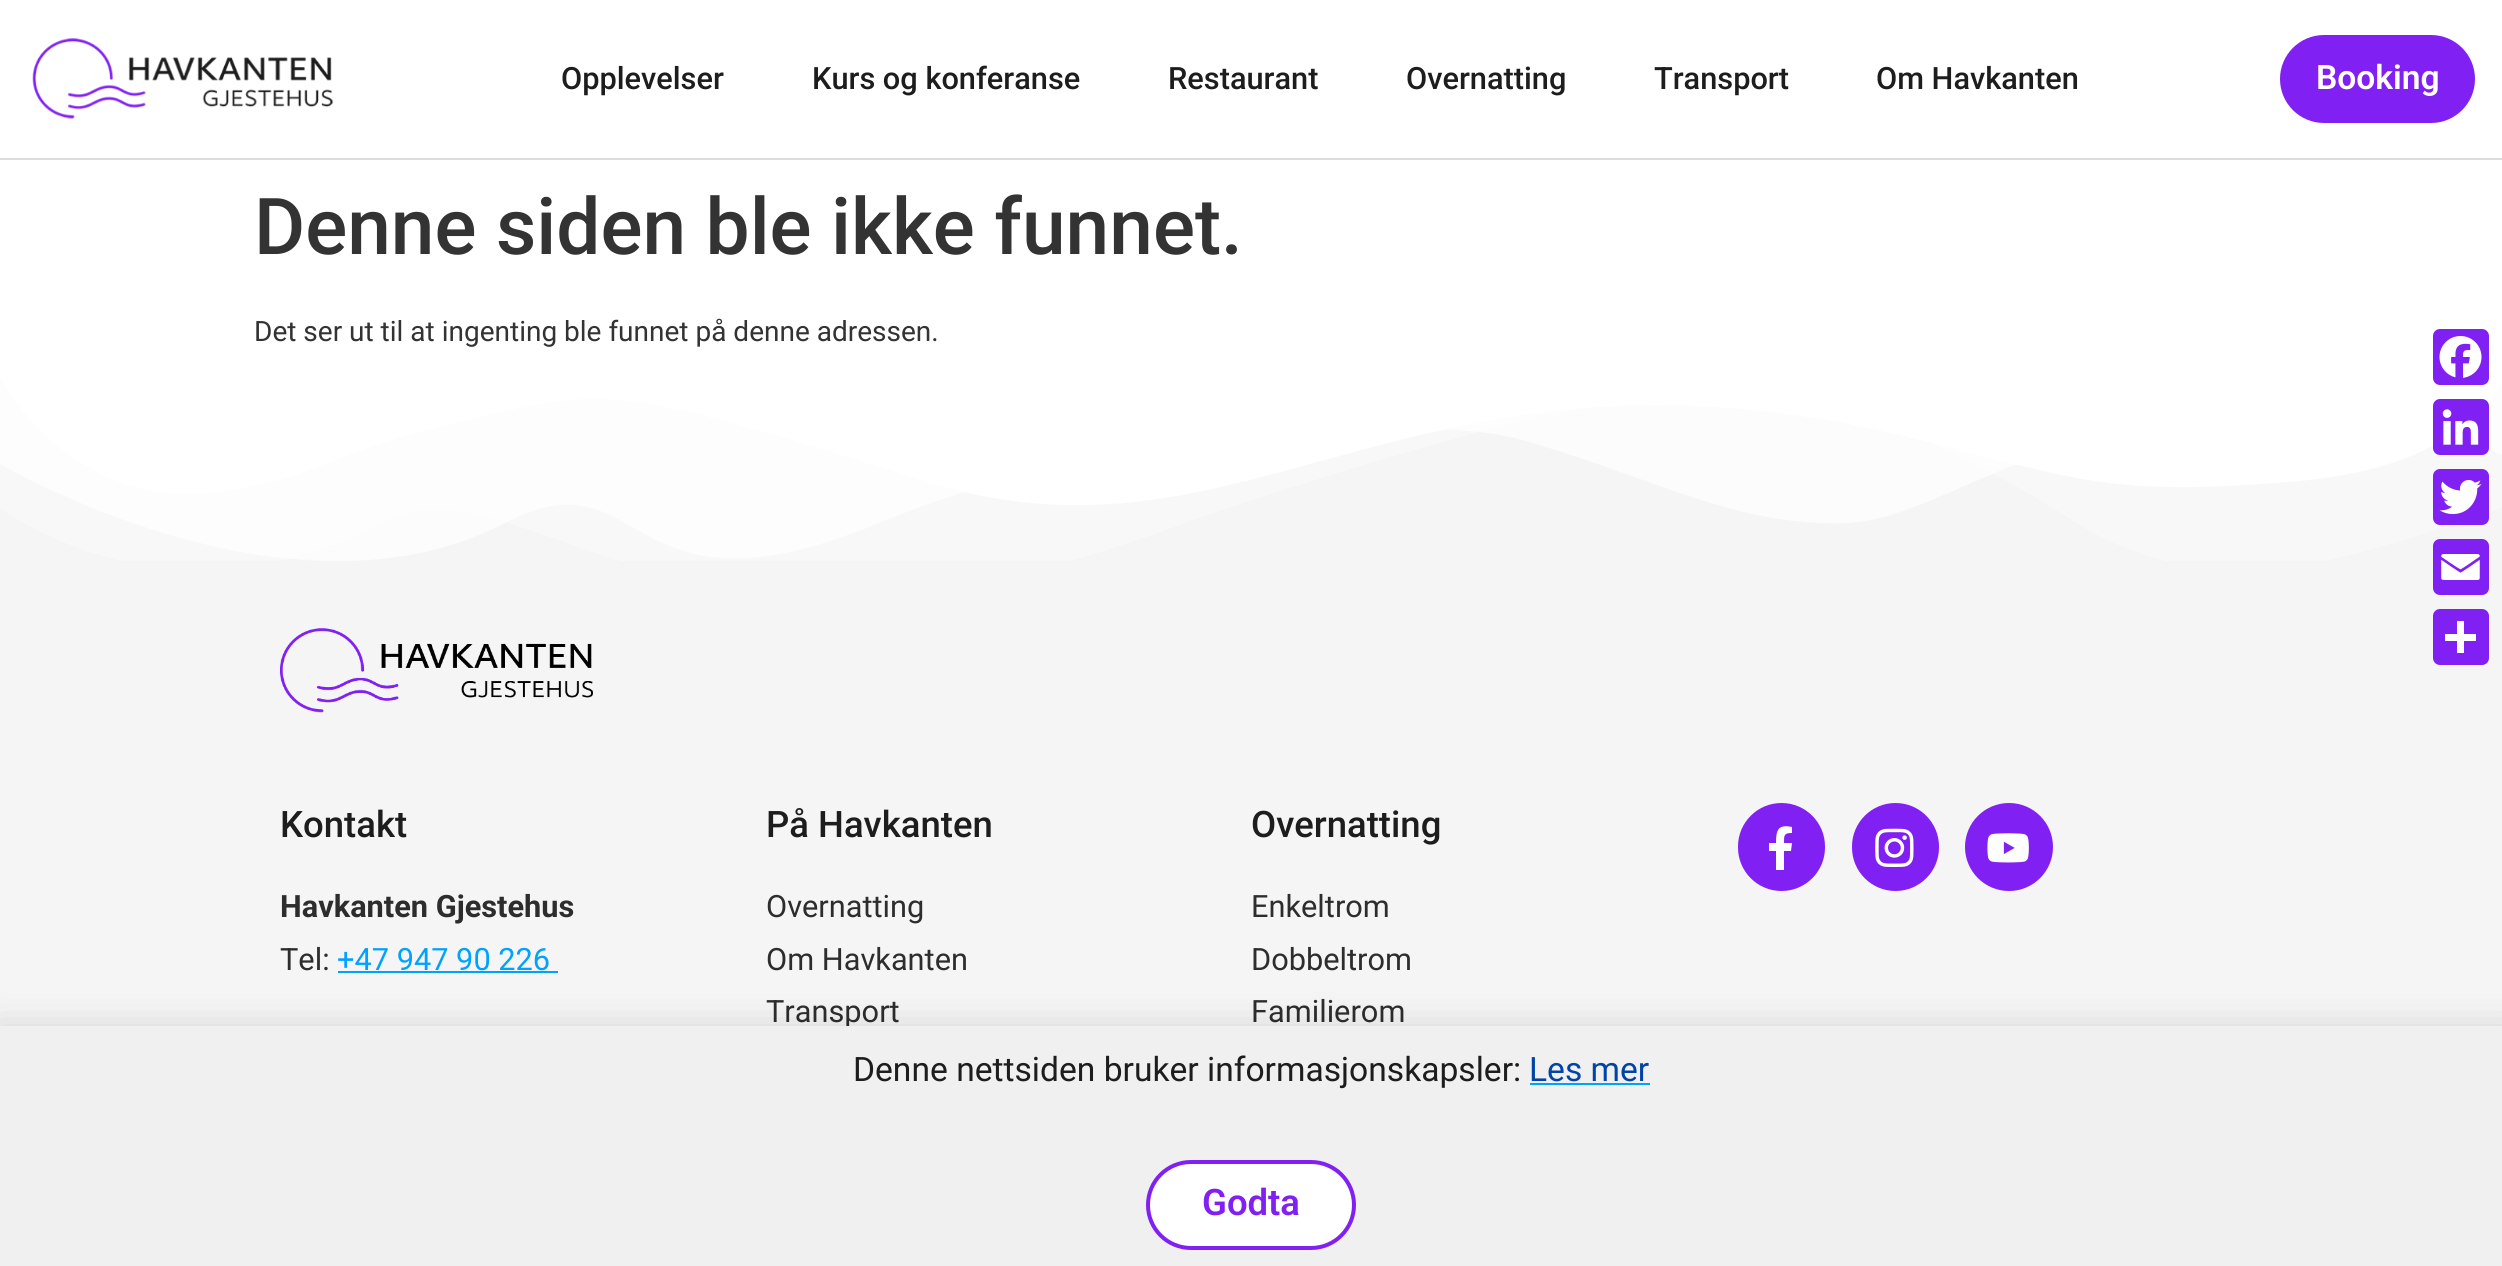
import math
import cairocffi as cairo

surface = cairo.ImageSurface(cairo.FORMAT_RGB24, 2502, 1266)
ctx = cairo.Context(surface)
options = cairo.FontOptions()
options.set_hint_metrics(cairo.HINT_METRICS_OFF)
options.set_hint_style(cairo.HINT_STYLE_NONE)
ctx.set_font_options(options)
ctx.set_miter_limit(4)


def rgb(r, g, b):
    ctx.set_source_rgb(r / 255, g / 255, b / 255)


def face(family, size, italic, bold):
    ctx.select_font_face(family, cairo.FONT_SLANT_ITALIC if italic else cairo.FONT_SLANT_NORMAL, cairo.FONT_WEIGHT_BOLD if bold else cairo.FONT_WEIGHT_NORMAL)
    ctx.set_font_size(size)


def label(x, y, s):
    ctx.move_to(x, y)
    ctx.show_text(s)


def rect(x, y, w, h):
    ctx.rectangle(x, y, w, h)
    ctx.fill()


def rrect(x, y, w, h, r):
    ctx.new_sub_path()
    for i, (u, v) in enumerate([(x + w - r, y + h - r), (x + r, y + h - r), (x + r, y + r), (x + w - r, y + r)]):
        ctx.arc(u, v, r, i * math.pi / 2, (i + 1) * math.pi / 2)
    ctx.close_path()


def soft_shadow(x, y, w, h, r, blur, alpha):
    ctx.push_group_with_content(cairo.CONTENT_ALPHA)
    ctx.set_operator(cairo.OPERATOR_SOURCE)
    for i in range(15, -16, -2):
        e = blur * i / 6
        if min(w, h) + 2 * e > 0:
            ctx.set_source_rgba(0, 0, 0, alpha * math.erfc((i - 1) / 8.5) / 2)
            rrect(x - e, y - e, w + 2 * e, h + 2 * e, max(0, min(r + e + blur * .6, min(w, h) / 2 + e)))
            ctx.fill()
    ctx.mask(ctx.pop_group())


def image(path, x, y, w, h):
    ctx.save()
    ctx.set_source_surface(cairo.ImageSurface.create_from_png(path), x, y)
    ctx.rectangle(x, y, w, h)
    ctx.fill()
    ctx.restore()


rgb(255, 255, 255)
ctx.paint()
rgb(221, 221, 221)
rect(0, 158, 2502, 2)
image('image0.png', 32, 38, 302, 81)
face('Roboto Medium', 30.75, 0, 0)
rgb(29, 29, 29)
label(561, 89, 'Opplevelser')
label(812, 89, 'Kurs og konferanse')
label(1168, 89, 'Restaurant')
label(1406, 89, 'Overnatting')
label(1654, 89, 'Transport')
label(1876, 89, 'Om Havkanten')
rgb(129, 32, 242)
rrect(2280, 35, 195, 88, 44)
ctx.fill()
face('Roboto SemiBold', 33.6, 0, 0)
rgb(255, 255, 255)
label(2316, 89, 'Booking')
face('Roboto Medium', 78.4, 0, 0)
rgb(51, 51, 51)
label(254, 254, 'Denne siden ble ikke funnet.')
face('Roboto', 28, 0, 0)
label(254, 341, 'Det ser ut til at ingenting ble funnet på denne adressen.')
rgb(245, 245, 245)
rect(0, 378, 2502, 648)
image('image5.png', 0, 378, 2502, 183)
rgb(129, 32, 242)
rrect(2433, 329, 56, 56, 7)
ctx.fill()
image('image1.png', 2439, 336, 43, 42)
rrect(2433, 399, 56, 56, 7)
ctx.fill()
image('image2.png', 2442, 409, 37, 36)
rrect(2433, 469, 56, 56, 7)
ctx.fill()
image('image3.png', 2439, 479, 43, 36)
rrect(2433, 539, 56, 56, 7)
ctx.fill()
image('image4.png', 2441, 554, 39, 26)
rrect(2433, 609, 56, 56, 7)
ctx.fill()
rgb(255, 255, 255)
rect(2457, 621, 7, 32)
rect(2445, 634, 31, 7)
image('image6.png', 280, 628, 313, 85)
face('Roboto Medium', 36.5, 0, 0)
rgb(29, 29, 29)
label(280, 837, 'Kontakt')
face('Roboto', 30.75, 0, 1)
rgb(45, 45, 45)
label(280, 917, 'Havkanten Gjestehus')
face('Roboto', 30.75, 0, 0)
label(280, 970, 'Tel:')
rgb(0, 162, 255)
label(337, 970, '+47 947 90 226')
rect(338, 971, 220, 2)
face('Roboto Medium', 36.5, 0, 0)
rgb(29, 29, 29)
label(766, 837, 'På Havkanten')
face('Roboto', 30.75, 0, 0)
rgb(45, 45, 45)
label(766, 917, 'Overnatting')
label(766, 970, 'Om Havkanten')
label(766, 1022, 'Transport')
face('Roboto Medium', 36.5, 0, 0)
rgb(29, 29, 29)
label(1251, 837, 'Overnatting')
face('Roboto', 30.75, 0, 0)
rgb(45, 45, 45)
label(1251, 917, 'Enkeltrom')
label(1251, 970, 'Dobbeltrom')
label(1251, 1022, 'Familierom')
rgb(129, 32, 242)
rrect(1738, 803, 87, 88, 43.5)
ctx.fill()
rgb(255, 255, 255)
ctx.new_path()
ctx.move_to(1791, 851)
ctx.line_to(1792, 843)
ctx.line_to(1784, 843)
ctx.curve_to(1784, 835, 1784, 833, 1792, 833)
ctx.line_to(1792, 827)
ctx.curve_to(1778, 824, 1776, 830, 1776, 843)
ctx.line_to(1769, 843)
ctx.line_to(1769, 851)
ctx.line_to(1776, 851)
ctx.line_to(1776, 870)
ctx.line_to(1784, 870)
ctx.line_to(1784, 851)
ctx.close_path()
ctx.fill()
rgb(129, 32, 242)
rrect(1852, 803, 87, 88, 43.5)
ctx.fill()
image('image7.png', 1875, 828, 39, 39)
ctx.arc(2009, 847, 44, 0, 2 * math.pi)
ctx.fill()
image('image8.png', 1987, 833, 42, 30)
rgb(0, 0, 0)
soft_shadow(-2, 1034, 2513, 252, 0, 20, 0.2)
rgb(240, 240, 240)
rect(0, 1026, 2502, 240)
face('Roboto', 33.6, 0, 0)
rgb(29, 29, 29)
label(853, 1081, 'Denne nettsiden bruker informasjonskapsler:')
rgb(0, 68, 167)
label(1529, 1081, 'Les mer')
rgb(0, 162, 255)
rect(1530, 1083, 120, 2)
rgb(255, 255, 255)
rrect(1148, 1162, 206, 86, 43)
ctx.fill_preserve()
rgb(129, 32, 242)
ctx.set_line_width(4)
ctx.stroke()
face('Roboto SemiBold', 36.5, 0, 0)
label(1202, 1215, 'Godta')
surface.write_to_png('render.png')
